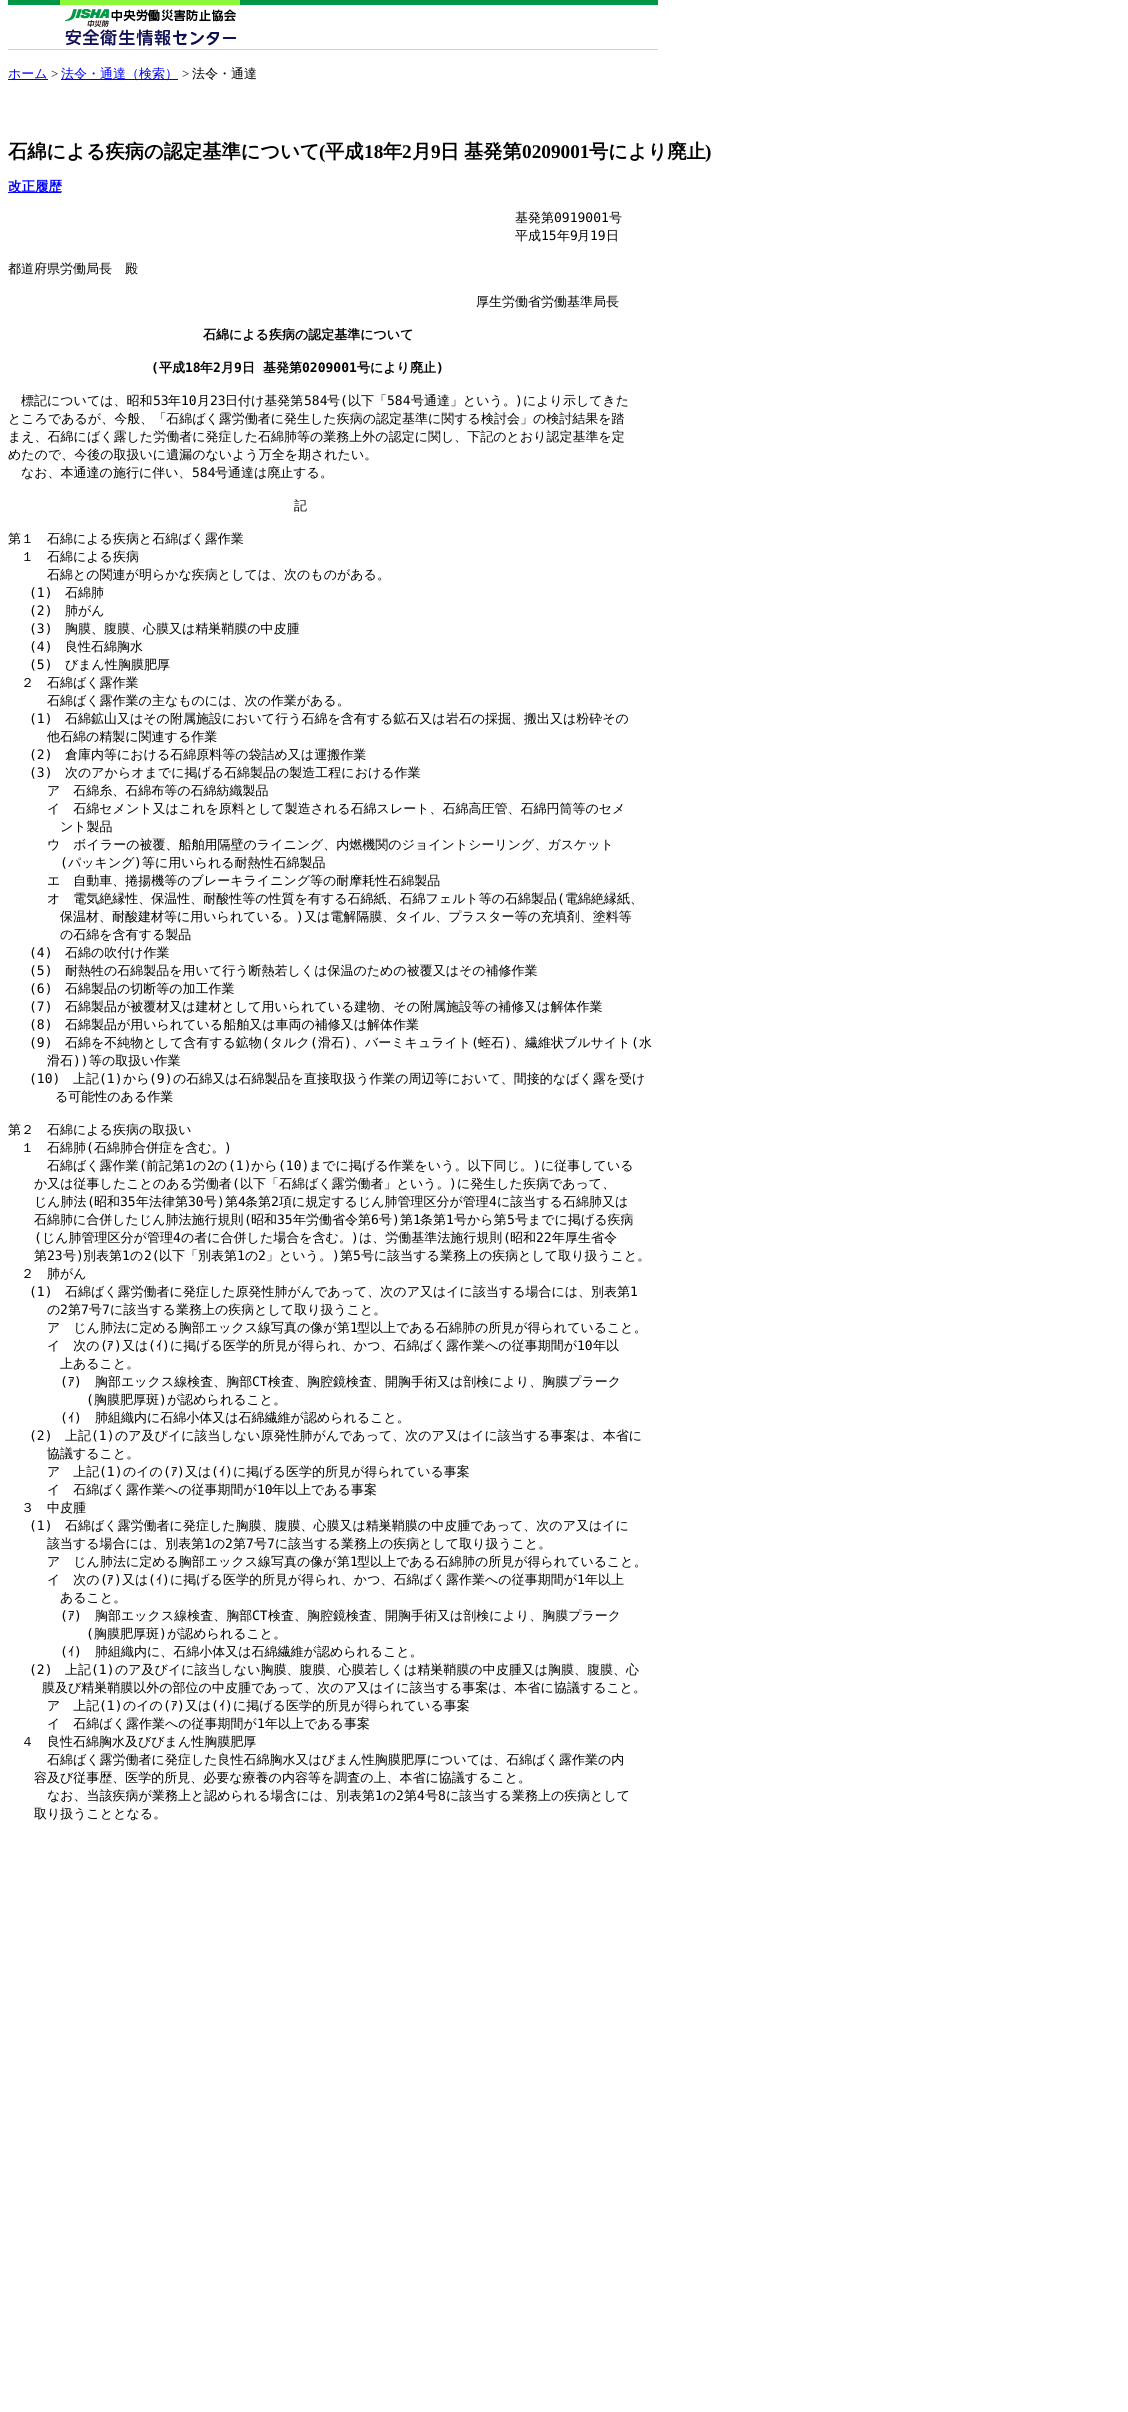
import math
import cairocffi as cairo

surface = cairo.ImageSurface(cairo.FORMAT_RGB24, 1128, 2412)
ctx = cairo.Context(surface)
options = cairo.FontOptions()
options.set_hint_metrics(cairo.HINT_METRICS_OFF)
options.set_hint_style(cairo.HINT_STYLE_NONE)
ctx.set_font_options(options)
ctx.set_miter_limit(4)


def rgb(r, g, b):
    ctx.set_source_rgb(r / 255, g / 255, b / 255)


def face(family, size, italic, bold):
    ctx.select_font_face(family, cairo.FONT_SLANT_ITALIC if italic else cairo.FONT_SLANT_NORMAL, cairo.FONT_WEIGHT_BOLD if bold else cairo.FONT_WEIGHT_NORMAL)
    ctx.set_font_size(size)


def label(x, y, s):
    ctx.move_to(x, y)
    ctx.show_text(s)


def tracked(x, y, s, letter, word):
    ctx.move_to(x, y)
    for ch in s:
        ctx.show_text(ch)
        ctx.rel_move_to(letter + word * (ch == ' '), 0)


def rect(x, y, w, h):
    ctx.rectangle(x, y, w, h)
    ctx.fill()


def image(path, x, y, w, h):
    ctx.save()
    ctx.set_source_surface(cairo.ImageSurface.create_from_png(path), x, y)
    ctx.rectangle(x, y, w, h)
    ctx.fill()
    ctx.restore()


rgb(255, 255, 255)
ctx.paint()
image('image0.png', 8, 0, 650, 50)
rgb(0, 0, 255)
rect(8, 79, 40, 1)
face('WenQuanYi Zen Hei Medium', 13, 0, 0)
label(8, 78, 'ホーム')
face('Liberation Serif', 13, 0, 0)
rgb(0, 0, 0)
label(51, 78, '>')
rgb(0, 0, 255)
rect(61, 79, 117, 1)
face('WenQuanYi Zen Hei Medium', 13, 0, 0)
label(61, 78, '法令・通達（検索）')
face('Liberation Serif', 13, 0, 0)
rgb(0, 0, 0)
label(182, 78, '>')
face('WenQuanYi Zen Hei Medium', 13, 0, 0)
label(192, 78, '法令・通達')
face('WenQuanYi Zen Hei', 19.25, 0, 1)
label(8, 158, '石綿による疾病の認定基準について')
face('Liberation Serif', 19.25, 0, 1)
label(319, 158, '(')
face('WenQuanYi Zen Hei', 19.25, 0, 1)
label(325, 158, '平成')
face('Liberation Serif', 19.25, 0, 1)
label(364, 158, '18')
face('WenQuanYi Zen Hei', 19.25, 0, 1)
label(383, 158, '年')
face('Liberation Serif', 19.25, 0, 1)
label(402, 158, '2')
face('WenQuanYi Zen Hei', 19.25, 0, 1)
label(412, 158, '月')
face('Liberation Serif', 19.25, 0, 1)
label(431, 158, '9')
face('WenQuanYi Zen Hei', 19.25, 0, 1)
tracked(440, 158, '日 基発第', 0, -1)
face('Liberation Serif', 19.25, 0, 1)
label(522, 158, '0209001')
face('WenQuanYi Zen Hei', 19.25, 0, 1)
label(589, 158, '号により廃止')
face('Liberation Serif', 19.25, 0, 1)
label(705, 158, ')')
rgb(0, 0, 255)
rect(8, 192, 53, 1)
face('WenQuanYi Zen Hei', 13.5, 0, 1)
label(8, 191, '改正履歴')
face('WenQuanYi Zen Hei Medium', 13, 0, 0)
rgb(0, 0, 0)
label(515, 222, '基発第')
face('DejaVu Sans Mono', 13, 0, 0)
label(554, 222, '0919001')
face('WenQuanYi Zen Hei Medium', 13, 0, 0)
label(609, 222, '号')
label(515, 240, '平成')
face('DejaVu Sans Mono', 13, 0, 0)
label(541, 240, '15')
face('WenQuanYi Zen Hei Medium', 13, 0, 0)
label(557, 240, '年')
face('DejaVu Sans Mono', 13, 0, 0)
label(570, 240, '9')
face('WenQuanYi Zen Hei Medium', 13, 0, 0)
label(577, 240, '月')
face('DejaVu Sans Mono', 13, 0, 0)
label(590, 240, '19')
face('WenQuanYi Zen Hei Medium', 13, 0, 0)
label(606, 240, '日')
label(8, 273, '都道府県労働局長　殿')
label(476, 306, '厚生労働省労働基準局長')
face('WenQuanYi Zen Hei', 13, 0, 1)
label(203, 339, '石綿による疾病の認定基準について')
face('DejaVu Sans Mono', 13, 0, 1)
label(151, 372, '(')
face('WenQuanYi Zen Hei', 13, 0, 1)
label(159, 372, '平成')
face('DejaVu Sans Mono', 13, 0, 1)
label(185, 372, '18')
face('WenQuanYi Zen Hei', 13, 0, 1)
label(200, 372, '年')
face('DejaVu Sans Mono', 13, 0, 1)
label(213, 372, '2')
face('WenQuanYi Zen Hei', 13, 0, 1)
label(221, 372, '月')
face('DejaVu Sans Mono', 13, 0, 1)
label(234, 372, '9')
face('WenQuanYi Zen Hei', 13, 0, 1)
tracked(242, 372, '日 基発第', 0, 4)
face('DejaVu Sans Mono', 13, 0, 1)
label(302, 372, '0209001')
face('WenQuanYi Zen Hei', 13, 0, 1)
label(357, 372, '号により廃止')
face('DejaVu Sans Mono', 13, 0, 1)
label(436, 372, ')')
face('WenQuanYi Zen Hei Medium', 13, 0, 0)
label(21, 405, '標記については、昭和')
face('DejaVu Sans Mono', 13, 0, 0)
label(153, 405, '53')
face('WenQuanYi Zen Hei Medium', 13, 0, 0)
label(168, 405, '年')
face('DejaVu Sans Mono', 13, 0, 0)
label(181, 405, '10')
face('WenQuanYi Zen Hei Medium', 13, 0, 0)
label(197, 405, '月')
face('DejaVu Sans Mono', 13, 0, 0)
label(210, 405, '23')
face('WenQuanYi Zen Hei Medium', 13, 0, 0)
label(225, 405, '日付け基発第')
face('DejaVu Sans Mono', 13, 0, 0)
label(304, 405, '584')
face('WenQuanYi Zen Hei Medium', 13, 0, 0)
label(327, 405, '号')
face('DejaVu Sans Mono', 13, 0, 0)
label(340, 405, '(')
face('WenQuanYi Zen Hei Medium', 13, 0, 0)
label(348, 405, '以下「')
face('DejaVu Sans Mono', 13, 0, 0)
label(387, 405, '584')
face('WenQuanYi Zen Hei Medium', 13, 0, 0)
label(411, 405, '号通達」という。')
face('DejaVu Sans Mono', 13, 0, 0)
label(515, 405, ')')
face('WenQuanYi Zen Hei Medium', 13, 0, 0)
label(523, 405, 'により示してきた')
label(8, 423, 'ところであるが、今般、「石綿ばく露労働者に発生した疾病の認定基準に関する検討会」の検討結果を踏')
label(8, 441, 'まえ、石綿にばく露した労働者に発症した石綿肺等の業務上外の認定に関し、下記のとおり認定基準を定')
label(8, 459, 'めたので、今後の取扱いに遺漏のないよう万全を期されたい。')
label(21, 477, 'なお、本通達の施行に伴い、')
face('DejaVu Sans Mono', 13, 0, 0)
label(192, 477, '584')
face('WenQuanYi Zen Hei Medium', 13, 0, 0)
label(215, 477, '号通達は廃止する。')
label(294, 510, '記')
label(8, 543, '第１　石綿による疾病と石綿ばく露作業')
label(21, 561, '１　石綿による疾病')
label(47, 579, '石綿との関連が明らかな疾病としては、次のものがある。')
face('DejaVu Sans Mono', 13, 0, 0)
label(29, 597, '(1)')
face('WenQuanYi Zen Hei Medium', 13, 0, 0)
label(65, 597, '石綿肺')
face('DejaVu Sans Mono', 13, 0, 0)
label(29, 615, '(2)')
face('WenQuanYi Zen Hei Medium', 13, 0, 0)
label(65, 615, '肺がん')
face('DejaVu Sans Mono', 13, 0, 0)
label(29, 633, '(3)')
face('WenQuanYi Zen Hei Medium', 13, 0, 0)
label(65, 633, '胸膜、腹膜、心膜又は精巣鞘膜の中皮腫')
face('DejaVu Sans Mono', 13, 0, 0)
label(29, 651, '(4)')
face('WenQuanYi Zen Hei Medium', 13, 0, 0)
label(65, 651, '良性石綿胸水')
face('DejaVu Sans Mono', 13, 0, 0)
label(29, 669, '(5)')
face('WenQuanYi Zen Hei Medium', 13, 0, 0)
label(65, 669, 'びまん性胸膜肥厚')
label(21, 687, '２　石綿ばく露作業')
label(47, 705, '石綿ばく露作業の主なものには、次の作業がある。')
face('DejaVu Sans Mono', 13, 0, 0)
label(29, 723, '(1)')
face('WenQuanYi Zen Hei Medium', 13, 0, 0)
label(65, 723, '石綿鉱山又はその附属施設において行う石綿を含有する鉱石又は岩石の採掘、搬出又は粉砕その')
label(47, 741, '他石綿の精製に関連する作業')
face('DejaVu Sans Mono', 13, 0, 0)
label(29, 759, '(2)')
face('WenQuanYi Zen Hei Medium', 13, 0, 0)
label(65, 759, '倉庫内等における石綿原料等の袋詰め又は運搬作業')
face('DejaVu Sans Mono', 13, 0, 0)
label(29, 777, '(3)')
face('WenQuanYi Zen Hei Medium', 13, 0, 0)
label(65, 777, '次のアからオまでに掲げる石綿製品の製造工程における作業')
label(47, 795, 'ア　石綿糸、石綿布等の石綿紡織製品')
label(47, 813, 'イ　石綿セメント又はこれを原料として製造される石綿スレート、石綿高圧管、石綿円筒等のセメ')
label(60, 831, 'ント製品')
label(47, 849, 'ウ　ボイラーの被覆、船舶用隔壁のライニング、内燃機関のジョイントシーリング、ガスケット')
face('DejaVu Sans Mono', 13, 0, 0)
label(60, 867, '(')
face('WenQuanYi Zen Hei Medium', 13, 0, 0)
label(68, 867, 'パッキング')
face('DejaVu Sans Mono', 13, 0, 0)
label(134, 867, ')')
face('WenQuanYi Zen Hei Medium', 13, 0, 0)
label(142, 867, '等に用いられる耐熱性石綿製品')
label(47, 885, 'エ　自動車、捲揚機等のブレーキライニング等の耐摩耗性石綿製品')
label(47, 903, 'オ　電気絶縁性、保温性、耐酸性等の性質を有する石綿紙、石綿フェルト等の石綿製品')
face('DejaVu Sans Mono', 13, 0, 0)
label(557, 903, '(')
face('WenQuanYi Zen Hei Medium', 13, 0, 0)
label(565, 903, '電綿絶縁紙、')
label(60, 921, '保温材、耐酸建材等に用いられている。')
face('DejaVu Sans Mono', 13, 0, 0)
label(296, 921, ')')
face('WenQuanYi Zen Hei Medium', 13, 0, 0)
label(304, 921, '又は電解隔膜、タイル、プラスター等の充填剤、塗料等')
label(60, 939, 'の石綿を含有する製品')
face('DejaVu Sans Mono', 13, 0, 0)
label(29, 957, '(4)')
face('WenQuanYi Zen Hei Medium', 13, 0, 0)
label(65, 957, '石綿の吹付け作業')
face('DejaVu Sans Mono', 13, 0, 0)
label(29, 975, '(5)')
face('WenQuanYi Zen Hei Medium', 13, 0, 0)
label(65, 975, '耐熱牲の石綿製品を用いて行う断熱若しくは保温のための被覆又はその補修作業')
face('DejaVu Sans Mono', 13, 0, 0)
label(29, 993, '(6)')
face('WenQuanYi Zen Hei Medium', 13, 0, 0)
label(65, 993, '石綿製品の切断等の加工作業')
face('DejaVu Sans Mono', 13, 0, 0)
label(29, 1011, '(7)')
face('WenQuanYi Zen Hei Medium', 13, 0, 0)
label(65, 1011, '石綿製品が被覆材又は建材として用いられている建物、その附属施設等の補修又は解体作業')
face('DejaVu Sans Mono', 13, 0, 0)
label(29, 1029, '(8)')
face('WenQuanYi Zen Hei Medium', 13, 0, 0)
label(65, 1029, '石綿製品が用いられている船舶又は車両の補修又は解体作業')
face('DejaVu Sans Mono', 13, 0, 0)
label(29, 1047, '(9)')
face('WenQuanYi Zen Hei Medium', 13, 0, 0)
label(65, 1047, '石綿を不純物として含有する鉱物')
face('DejaVu Sans Mono', 13, 0, 0)
label(262, 1047, '(')
face('WenQuanYi Zen Hei Medium', 13, 0, 0)
label(270, 1047, 'タルク')
face('DejaVu Sans Mono', 13, 0, 0)
label(310, 1047, '(')
face('WenQuanYi Zen Hei Medium', 13, 0, 0)
label(318, 1047, '滑石')
face('DejaVu Sans Mono', 13, 0, 0)
label(344, 1047, ')')
face('WenQuanYi Zen Hei Medium', 13, 0, 0)
label(352, 1047, '、バーミキュライト')
face('DejaVu Sans Mono', 13, 0, 0)
label(471, 1047, '(')
face('WenQuanYi Zen Hei Medium', 13, 0, 0)
label(478, 1047, '蛭石')
face('DejaVu Sans Mono', 13, 0, 0)
label(504, 1047, ')')
face('WenQuanYi Zen Hei Medium', 13, 0, 0)
label(512, 1047, '、繊維状ブルサイト')
face('DejaVu Sans Mono', 13, 0, 0)
label(631, 1047, '(')
face('WenQuanYi Zen Hei Medium', 13, 0, 0)
label(639, 1047, '水')
label(47, 1065, '滑石')
face('DejaVu Sans Mono', 13, 0, 0)
label(73, 1065, '))')
face('WenQuanYi Zen Hei Medium', 13, 0, 0)
label(89, 1065, '等の取扱い作業')
face('DejaVu Sans Mono', 13, 0, 0)
label(29, 1083, '(10)')
face('WenQuanYi Zen Hei Medium', 13, 0, 0)
label(73, 1083, '上記')
face('DejaVu Sans Mono', 13, 0, 0)
label(99, 1083, '(1)')
face('WenQuanYi Zen Hei Medium', 13, 0, 0)
label(123, 1083, 'から')
face('DejaVu Sans Mono', 13, 0, 0)
label(149, 1083, '(9)')
face('WenQuanYi Zen Hei Medium', 13, 0, 0)
label(173, 1083, 'の石綿又は石綿製品を直接取扱う作業の周辺等において、間接的なばく露を受け')
label(55, 1101, 'る可能性のある作業')
label(8, 1134, '第２　石綿による疾病の取扱い')
label(21, 1152, '１　石綿肺')
face('DejaVu Sans Mono', 13, 0, 0)
label(86, 1152, '(')
face('WenQuanYi Zen Hei Medium', 13, 0, 0)
label(94, 1152, '石綿肺合併症を含む。')
face('DejaVu Sans Mono', 13, 0, 0)
label(224, 1152, ')')
face('WenQuanYi Zen Hei Medium', 13, 0, 0)
label(47, 1170, '石綿ばく露作業')
face('DejaVu Sans Mono', 13, 0, 0)
label(139, 1170, '(')
face('WenQuanYi Zen Hei Medium', 13, 0, 0)
label(146, 1170, '前記第')
face('DejaVu Sans Mono', 13, 0, 0)
label(185, 1170, '1')
face('WenQuanYi Zen Hei Medium', 13, 0, 0)
label(193, 1170, 'の')
face('DejaVu Sans Mono', 13, 0, 0)
label(207, 1170, '2')
face('WenQuanYi Zen Hei Medium', 13, 0, 0)
label(214, 1170, 'の')
face('DejaVu Sans Mono', 13, 0, 0)
label(228, 1170, '(1)')
face('WenQuanYi Zen Hei Medium', 13, 0, 0)
label(251, 1170, 'から')
face('DejaVu Sans Mono', 13, 0, 0)
label(278, 1170, '(10)')
face('WenQuanYi Zen Hei Medium', 13, 0, 0)
label(309, 1170, 'までに掲げる作業をいう。以下同じ。')
face('DejaVu Sans Mono', 13, 0, 0)
label(533, 1170, ')')
face('WenQuanYi Zen Hei Medium', 13, 0, 0)
label(541, 1170, 'に従事している')
label(34, 1188, 'か又は従事したことのある労働者')
face('DejaVu Sans Mono', 13, 0, 0)
label(232, 1188, '(')
face('WenQuanYi Zen Hei Medium', 13, 0, 0)
label(240, 1188, '以下「石綿ばく露労働者」という。')
face('DejaVu Sans Mono', 13, 0, 0)
label(449, 1188, ')')
face('WenQuanYi Zen Hei Medium', 13, 0, 0)
label(457, 1188, 'に発生した疾病であって、')
label(34, 1206, 'じん肺法')
face('DejaVu Sans Mono', 13, 0, 0)
label(87, 1206, '(')
face('WenQuanYi Zen Hei Medium', 13, 0, 0)
label(94, 1206, '昭和')
face('DejaVu Sans Mono', 13, 0, 0)
label(120, 1206, '35')
face('WenQuanYi Zen Hei Medium', 13, 0, 0)
label(136, 1206, '年法律第')
face('DejaVu Sans Mono', 13, 0, 0)
label(188, 1206, '30')
face('WenQuanYi Zen Hei Medium', 13, 0, 0)
label(204, 1206, '号')
face('DejaVu Sans Mono', 13, 0, 0)
label(217, 1206, ')')
face('WenQuanYi Zen Hei Medium', 13, 0, 0)
label(225, 1206, '第')
face('DejaVu Sans Mono', 13, 0, 0)
label(238, 1206, '4')
face('WenQuanYi Zen Hei Medium', 13, 0, 0)
label(245, 1206, '条第')
face('DejaVu Sans Mono', 13, 0, 0)
label(271, 1206, '2')
face('WenQuanYi Zen Hei Medium', 13, 0, 0)
label(279, 1206, '項に規定するじん肺管理区分が管理')
face('DejaVu Sans Mono', 13, 0, 0)
label(489, 1206, '4')
face('WenQuanYi Zen Hei Medium', 13, 0, 0)
label(497, 1206, 'に該当する石綿肺又は')
label(34, 1224, '石綿肺に合併したじん肺法施行規則')
face('DejaVu Sans Mono', 13, 0, 0)
label(244, 1224, '(')
face('WenQuanYi Zen Hei Medium', 13, 0, 0)
label(251, 1224, '昭和')
face('DejaVu Sans Mono', 13, 0, 0)
label(277, 1224, '35')
face('WenQuanYi Zen Hei Medium', 13, 0, 0)
label(293, 1224, '年労働省令第')
face('DejaVu Sans Mono', 13, 0, 0)
label(371, 1224, '6')
face('WenQuanYi Zen Hei Medium', 13, 0, 0)
label(379, 1224, '号')
face('DejaVu Sans Mono', 13, 0, 0)
label(392, 1224, ')')
face('WenQuanYi Zen Hei Medium', 13, 0, 0)
label(400, 1224, '第')
face('DejaVu Sans Mono', 13, 0, 0)
label(413, 1224, '1')
face('WenQuanYi Zen Hei Medium', 13, 0, 0)
label(420, 1224, '条第')
face('DejaVu Sans Mono', 13, 0, 0)
label(446, 1224, '1')
face('WenQuanYi Zen Hei Medium', 13, 0, 0)
label(454, 1224, '号から第')
face('DejaVu Sans Mono', 13, 0, 0)
label(507, 1224, '5')
face('WenQuanYi Zen Hei Medium', 13, 0, 0)
label(515, 1224, '号までに掲げる疾病')
face('DejaVu Sans Mono', 13, 0, 0)
label(34, 1242, '(')
face('WenQuanYi Zen Hei Medium', 13, 0, 0)
label(42, 1242, 'じん肺管理区分が管理')
face('DejaVu Sans Mono', 13, 0, 0)
label(173, 1242, '4')
face('WenQuanYi Zen Hei Medium', 13, 0, 0)
label(181, 1242, 'の者に合併した場合を含む。')
face('DejaVu Sans Mono', 13, 0, 0)
label(351, 1242, ')')
face('WenQuanYi Zen Hei Medium', 13, 0, 0)
label(359, 1242, 'は、労働基準法施行規則')
face('DejaVu Sans Mono', 13, 0, 0)
label(503, 1242, '(')
face('WenQuanYi Zen Hei Medium', 13, 0, 0)
label(510, 1242, '昭和')
face('DejaVu Sans Mono', 13, 0, 0)
label(536, 1242, '22')
face('WenQuanYi Zen Hei Medium', 13, 0, 0)
label(552, 1242, '年厚生省令')
label(34, 1260, '第')
face('DejaVu Sans Mono', 13, 0, 0)
label(47, 1260, '23')
face('WenQuanYi Zen Hei Medium', 13, 0, 0)
label(63, 1260, '号')
face('DejaVu Sans Mono', 13, 0, 0)
label(76, 1260, ')')
face('WenQuanYi Zen Hei Medium', 13, 0, 0)
label(83, 1260, '別表第')
face('DejaVu Sans Mono', 13, 0, 0)
label(122, 1260, '1')
face('WenQuanYi Zen Hei Medium', 13, 0, 0)
label(130, 1260, 'の')
face('DejaVu Sans Mono', 13, 0, 0)
label(144, 1260, '2(')
face('WenQuanYi Zen Hei Medium', 13, 0, 0)
label(159, 1260, '以下「別表第')
face('DejaVu Sans Mono', 13, 0, 0)
label(237, 1260, '1')
face('WenQuanYi Zen Hei Medium', 13, 0, 0)
label(245, 1260, 'の')
face('DejaVu Sans Mono', 13, 0, 0)
label(258, 1260, '2')
face('WenQuanYi Zen Hei Medium', 13, 0, 0)
label(266, 1260, '」という。')
face('DejaVu Sans Mono', 13, 0, 0)
label(332, 1260, ')')
face('WenQuanYi Zen Hei Medium', 13, 0, 0)
label(340, 1260, '第')
face('DejaVu Sans Mono', 13, 0, 0)
label(353, 1260, '5')
face('WenQuanYi Zen Hei Medium', 13, 0, 0)
label(361, 1260, '号に該当する業務上の疾病として取り扱うこと。')
label(21, 1278, '２　肺がん')
face('DejaVu Sans Mono', 13, 0, 0)
label(29, 1296, '(1)')
face('WenQuanYi Zen Hei Medium', 13, 0, 0)
label(65, 1296, '石綿ばく露労働者に発症した原発性肺がんであって、次のア又はイに該当する場合には、別表第')
face('DejaVu Sans Mono', 13, 0, 0)
label(630, 1296, '1')
face('WenQuanYi Zen Hei Medium', 13, 0, 0)
label(47, 1314, 'の')
face('DejaVu Sans Mono', 13, 0, 0)
label(60, 1314, '2')
face('WenQuanYi Zen Hei Medium', 13, 0, 0)
label(68, 1314, '第')
face('DejaVu Sans Mono', 13, 0, 0)
label(81, 1314, '7')
face('WenQuanYi Zen Hei Medium', 13, 0, 0)
label(89, 1314, '号')
face('DejaVu Sans Mono', 13, 0, 0)
label(102, 1314, '7')
face('WenQuanYi Zen Hei Medium', 13, 0, 0)
label(110, 1314, 'に該当する業務上の疾病として取り扱うこと。')
label(47, 1332, 'ア　じん肺法に定める胸部エックス線写真の像が第')
face('DejaVu Sans Mono', 13, 0, 0)
label(350, 1332, '1')
face('WenQuanYi Zen Hei Medium', 13, 0, 0)
label(357, 1332, '型以上である石綿肺の所見が得られていること。')
label(47, 1350, 'イ　次の')
face('DejaVu Sans Mono', 13, 0, 0)
label(100, 1350, '(')
face('IPAGothic', 13, 0, 0)
label(107, 1350, 'ｱ')
face('DejaVu Sans Mono', 13, 0, 0)
label(114, 1350, ')')
face('WenQuanYi Zen Hei Medium', 13, 0, 0)
label(122, 1350, '又は')
face('DejaVu Sans Mono', 13, 0, 0)
label(148, 1350, '(')
face('IPAGothic', 13, 0, 0)
label(156, 1350, 'ｲ')
face('DejaVu Sans Mono', 13, 0, 0)
label(162, 1350, ')')
face('WenQuanYi Zen Hei Medium', 13, 0, 0)
label(170, 1350, 'に掲げる医学的所見が得られ、かつ、石綿ばく露作業への従事期間が')
face('DejaVu Sans Mono', 13, 0, 0)
label(577, 1350, '10')
face('WenQuanYi Zen Hei Medium', 13, 0, 0)
label(593, 1350, '年以')
label(60, 1368, '上あること。')
face('DejaVu Sans Mono', 13, 0, 0)
label(60, 1386, '(')
face('IPAGothic', 13, 0, 0)
label(68, 1386, 'ｱ')
face('DejaVu Sans Mono', 13, 0, 0)
label(74, 1386, ')')
face('WenQuanYi Zen Hei Medium', 13, 0, 0)
label(95, 1386, '胸部エックス線検査、胸部')
face('DejaVu Sans Mono', 13, 0, 0)
label(252, 1386, 'CT')
face('WenQuanYi Zen Hei Medium', 13, 0, 0)
label(268, 1386, '検査、胸腔鏡検査、開胸手術又は剖検により、胸膜プラーク')
face('DejaVu Sans Mono', 13, 0, 0)
label(86, 1404, '(')
face('WenQuanYi Zen Hei Medium', 13, 0, 0)
label(94, 1404, '胸膜肥厚斑')
face('DejaVu Sans Mono', 13, 0, 0)
label(159, 1404, ')')
face('WenQuanYi Zen Hei Medium', 13, 0, 0)
label(167, 1404, 'が認められること。')
face('DejaVu Sans Mono', 13, 0, 0)
label(60, 1422, '(')
face('IPAGothic', 13, 0, 0)
label(68, 1422, 'ｲ')
face('DejaVu Sans Mono', 13, 0, 0)
label(74, 1422, ')')
face('WenQuanYi Zen Hei Medium', 13, 0, 0)
label(95, 1422, '肺組織内に石綿小体又は石綿繊維が認められること。')
face('DejaVu Sans Mono', 13, 0, 0)
label(29, 1440, '(2)')
face('WenQuanYi Zen Hei Medium', 13, 0, 0)
label(65, 1440, '上記')
face('DejaVu Sans Mono', 13, 0, 0)
label(91, 1440, '(1)')
face('WenQuanYi Zen Hei Medium', 13, 0, 0)
label(115, 1440, 'のア及びイに該当しない原発性肺がんであって、次のア又はイに該当する事案は、本省に')
label(47, 1458, '協議すること。')
label(47, 1476, 'ア　上記')
face('DejaVu Sans Mono', 13, 0, 0)
label(99, 1476, '(1)')
face('WenQuanYi Zen Hei Medium', 13, 0, 0)
label(123, 1476, 'のイの')
face('DejaVu Sans Mono', 13, 0, 0)
label(163, 1476, '(')
face('IPAGothic', 13, 0, 0)
label(171, 1476, 'ｱ')
face('DejaVu Sans Mono', 13, 0, 0)
label(177, 1476, ')')
face('WenQuanYi Zen Hei Medium', 13, 0, 0)
label(185, 1476, '又は')
face('DejaVu Sans Mono', 13, 0, 0)
label(211, 1476, '(')
face('IPAGothic', 13, 0, 0)
label(219, 1476, 'ｲ')
face('DejaVu Sans Mono', 13, 0, 0)
label(225, 1476, ')')
face('WenQuanYi Zen Hei Medium', 13, 0, 0)
label(233, 1476, 'に掲げる医学的所見が得られている事案')
label(47, 1494, 'イ　石綿ばく露作業への従事期間が')
face('DejaVu Sans Mono', 13, 0, 0)
label(257, 1494, '10')
face('WenQuanYi Zen Hei Medium', 13, 0, 0)
label(272, 1494, '年以上である事案')
label(21, 1512, '３　中皮腫')
face('DejaVu Sans Mono', 13, 0, 0)
label(29, 1530, '(1)')
face('WenQuanYi Zen Hei Medium', 13, 0, 0)
label(65, 1530, '石綿ばく露労働者に発症した胸膜、腹膜、心膜又は精巣鞘膜の中皮腫であって、次のア又はイに')
label(47, 1548, '該当する場合には、別表第')
face('DejaVu Sans Mono', 13, 0, 0)
label(204, 1548, '1')
face('WenQuanYi Zen Hei Medium', 13, 0, 0)
label(212, 1548, 'の')
face('DejaVu Sans Mono', 13, 0, 0)
label(225, 1548, '2')
face('WenQuanYi Zen Hei Medium', 13, 0, 0)
label(233, 1548, '第')
face('DejaVu Sans Mono', 13, 0, 0)
label(246, 1548, '7')
face('WenQuanYi Zen Hei Medium', 13, 0, 0)
label(254, 1548, '号')
face('DejaVu Sans Mono', 13, 0, 0)
label(267, 1548, '7')
face('WenQuanYi Zen Hei Medium', 13, 0, 0)
label(275, 1548, 'に該当する業務上の疾病として取り扱うこと。')
label(47, 1566, 'ア　じん肺法に定める胸部エックス線写真の像が第')
face('DejaVu Sans Mono', 13, 0, 0)
label(350, 1566, '1')
face('WenQuanYi Zen Hei Medium', 13, 0, 0)
label(357, 1566, '型以上である石綿肺の所見が得られていること。')
label(47, 1584, 'イ　次の')
face('DejaVu Sans Mono', 13, 0, 0)
label(100, 1584, '(')
face('IPAGothic', 13, 0, 0)
label(107, 1584, 'ｱ')
face('DejaVu Sans Mono', 13, 0, 0)
label(114, 1584, ')')
face('WenQuanYi Zen Hei Medium', 13, 0, 0)
label(122, 1584, '又は')
face('DejaVu Sans Mono', 13, 0, 0)
label(148, 1584, '(')
face('IPAGothic', 13, 0, 0)
label(156, 1584, 'ｲ')
face('DejaVu Sans Mono', 13, 0, 0)
label(162, 1584, ')')
face('WenQuanYi Zen Hei Medium', 13, 0, 0)
label(170, 1584, 'に掲げる医学的所見が得られ、かつ、石綿ばく露作業への従事期間が')
face('DejaVu Sans Mono', 13, 0, 0)
label(577, 1584, '1')
face('WenQuanYi Zen Hei Medium', 13, 0, 0)
label(585, 1584, '年以上')
label(60, 1602, 'あること。')
face('DejaVu Sans Mono', 13, 0, 0)
label(60, 1620, '(')
face('IPAGothic', 13, 0, 0)
label(68, 1620, 'ｱ')
face('DejaVu Sans Mono', 13, 0, 0)
label(74, 1620, ')')
face('WenQuanYi Zen Hei Medium', 13, 0, 0)
label(95, 1620, '胸部エックス線検査、胸部')
face('DejaVu Sans Mono', 13, 0, 0)
label(252, 1620, 'CT')
face('WenQuanYi Zen Hei Medium', 13, 0, 0)
label(268, 1620, '検査、胸腔鏡検査、開胸手術又は剖検により、胸膜プラーク')
face('DejaVu Sans Mono', 13, 0, 0)
label(86, 1638, '(')
face('WenQuanYi Zen Hei Medium', 13, 0, 0)
label(94, 1638, '胸膜肥厚斑')
face('DejaVu Sans Mono', 13, 0, 0)
label(159, 1638, ')')
face('WenQuanYi Zen Hei Medium', 13, 0, 0)
label(167, 1638, 'が認められること。')
face('DejaVu Sans Mono', 13, 0, 0)
label(60, 1656, '(')
face('IPAGothic', 13, 0, 0)
label(68, 1656, 'ｲ')
face('DejaVu Sans Mono', 13, 0, 0)
label(74, 1656, ')')
face('WenQuanYi Zen Hei Medium', 13, 0, 0)
label(95, 1656, '肺組織内に、石綿小体又は石綿繊維が認められること。')
face('DejaVu Sans Mono', 13, 0, 0)
label(29, 1674, '(2)')
face('WenQuanYi Zen Hei Medium', 13, 0, 0)
label(65, 1674, '上記')
face('DejaVu Sans Mono', 13, 0, 0)
label(91, 1674, '(1)')
face('WenQuanYi Zen Hei Medium', 13, 0, 0)
label(115, 1674, 'のア及びイに該当しない胸膜、腹膜、心膜若しくは精巣鞘膜の中皮腫又は胸膜、腹膜、心')
label(42, 1692, '膜及び精巣鞘膜以外の部位の中皮腫であって、次のア又はイに該当する事案は、本省に協議すること。')
label(47, 1710, 'ア　上記')
face('DejaVu Sans Mono', 13, 0, 0)
label(99, 1710, '(1)')
face('WenQuanYi Zen Hei Medium', 13, 0, 0)
label(123, 1710, 'のイの')
face('DejaVu Sans Mono', 13, 0, 0)
label(163, 1710, '(')
face('IPAGothic', 13, 0, 0)
label(171, 1710, 'ｱ')
face('DejaVu Sans Mono', 13, 0, 0)
label(177, 1710, ')')
face('WenQuanYi Zen Hei Medium', 13, 0, 0)
label(185, 1710, '又は')
face('DejaVu Sans Mono', 13, 0, 0)
label(211, 1710, '(')
face('IPAGothic', 13, 0, 0)
label(219, 1710, 'ｲ')
face('DejaVu Sans Mono', 13, 0, 0)
label(225, 1710, ')')
face('WenQuanYi Zen Hei Medium', 13, 0, 0)
label(233, 1710, 'に掲げる医学的所見が得られている事案')
label(47, 1728, 'イ　石綿ばく露作業への従事期間が')
face('DejaVu Sans Mono', 13, 0, 0)
label(257, 1728, '1')
face('WenQuanYi Zen Hei Medium', 13, 0, 0)
label(265, 1728, '年以上である事案')
label(21, 1746, '４　良性石綿胸水及びびまん性胸膜肥厚')
label(47, 1764, '石綿ばく露労働者に発症した良性石綿胸水又はびまん性胸膜肥厚については、石綿ばく露作業の内')
label(34, 1782, '容及び従事歴、医学的所見、必要な療養の内容等を調査の上、本省に協議すること。')
label(47, 1800, 'なお、当該疾病が業務上と認められる場含には、別表第')
face('DejaVu Sans Mono', 13, 0, 0)
label(375, 1800, '1')
face('WenQuanYi Zen Hei Medium', 13, 0, 0)
label(383, 1800, 'の')
face('DejaVu Sans Mono', 13, 0, 0)
label(396, 1800, '2')
face('WenQuanYi Zen Hei Medium', 13, 0, 0)
label(404, 1800, '第')
face('DejaVu Sans Mono', 13, 0, 0)
label(417, 1800, '4')
face('WenQuanYi Zen Hei Medium', 13, 0, 0)
label(425, 1800, '号')
face('DejaVu Sans Mono', 13, 0, 0)
label(438, 1800, '8')
face('WenQuanYi Zen Hei Medium', 13, 0, 0)
label(446, 1800, 'に該当する業務上の疾病として')
label(34, 1818, '取り扱うこととなる。')
surface.write_to_png('render.png')
